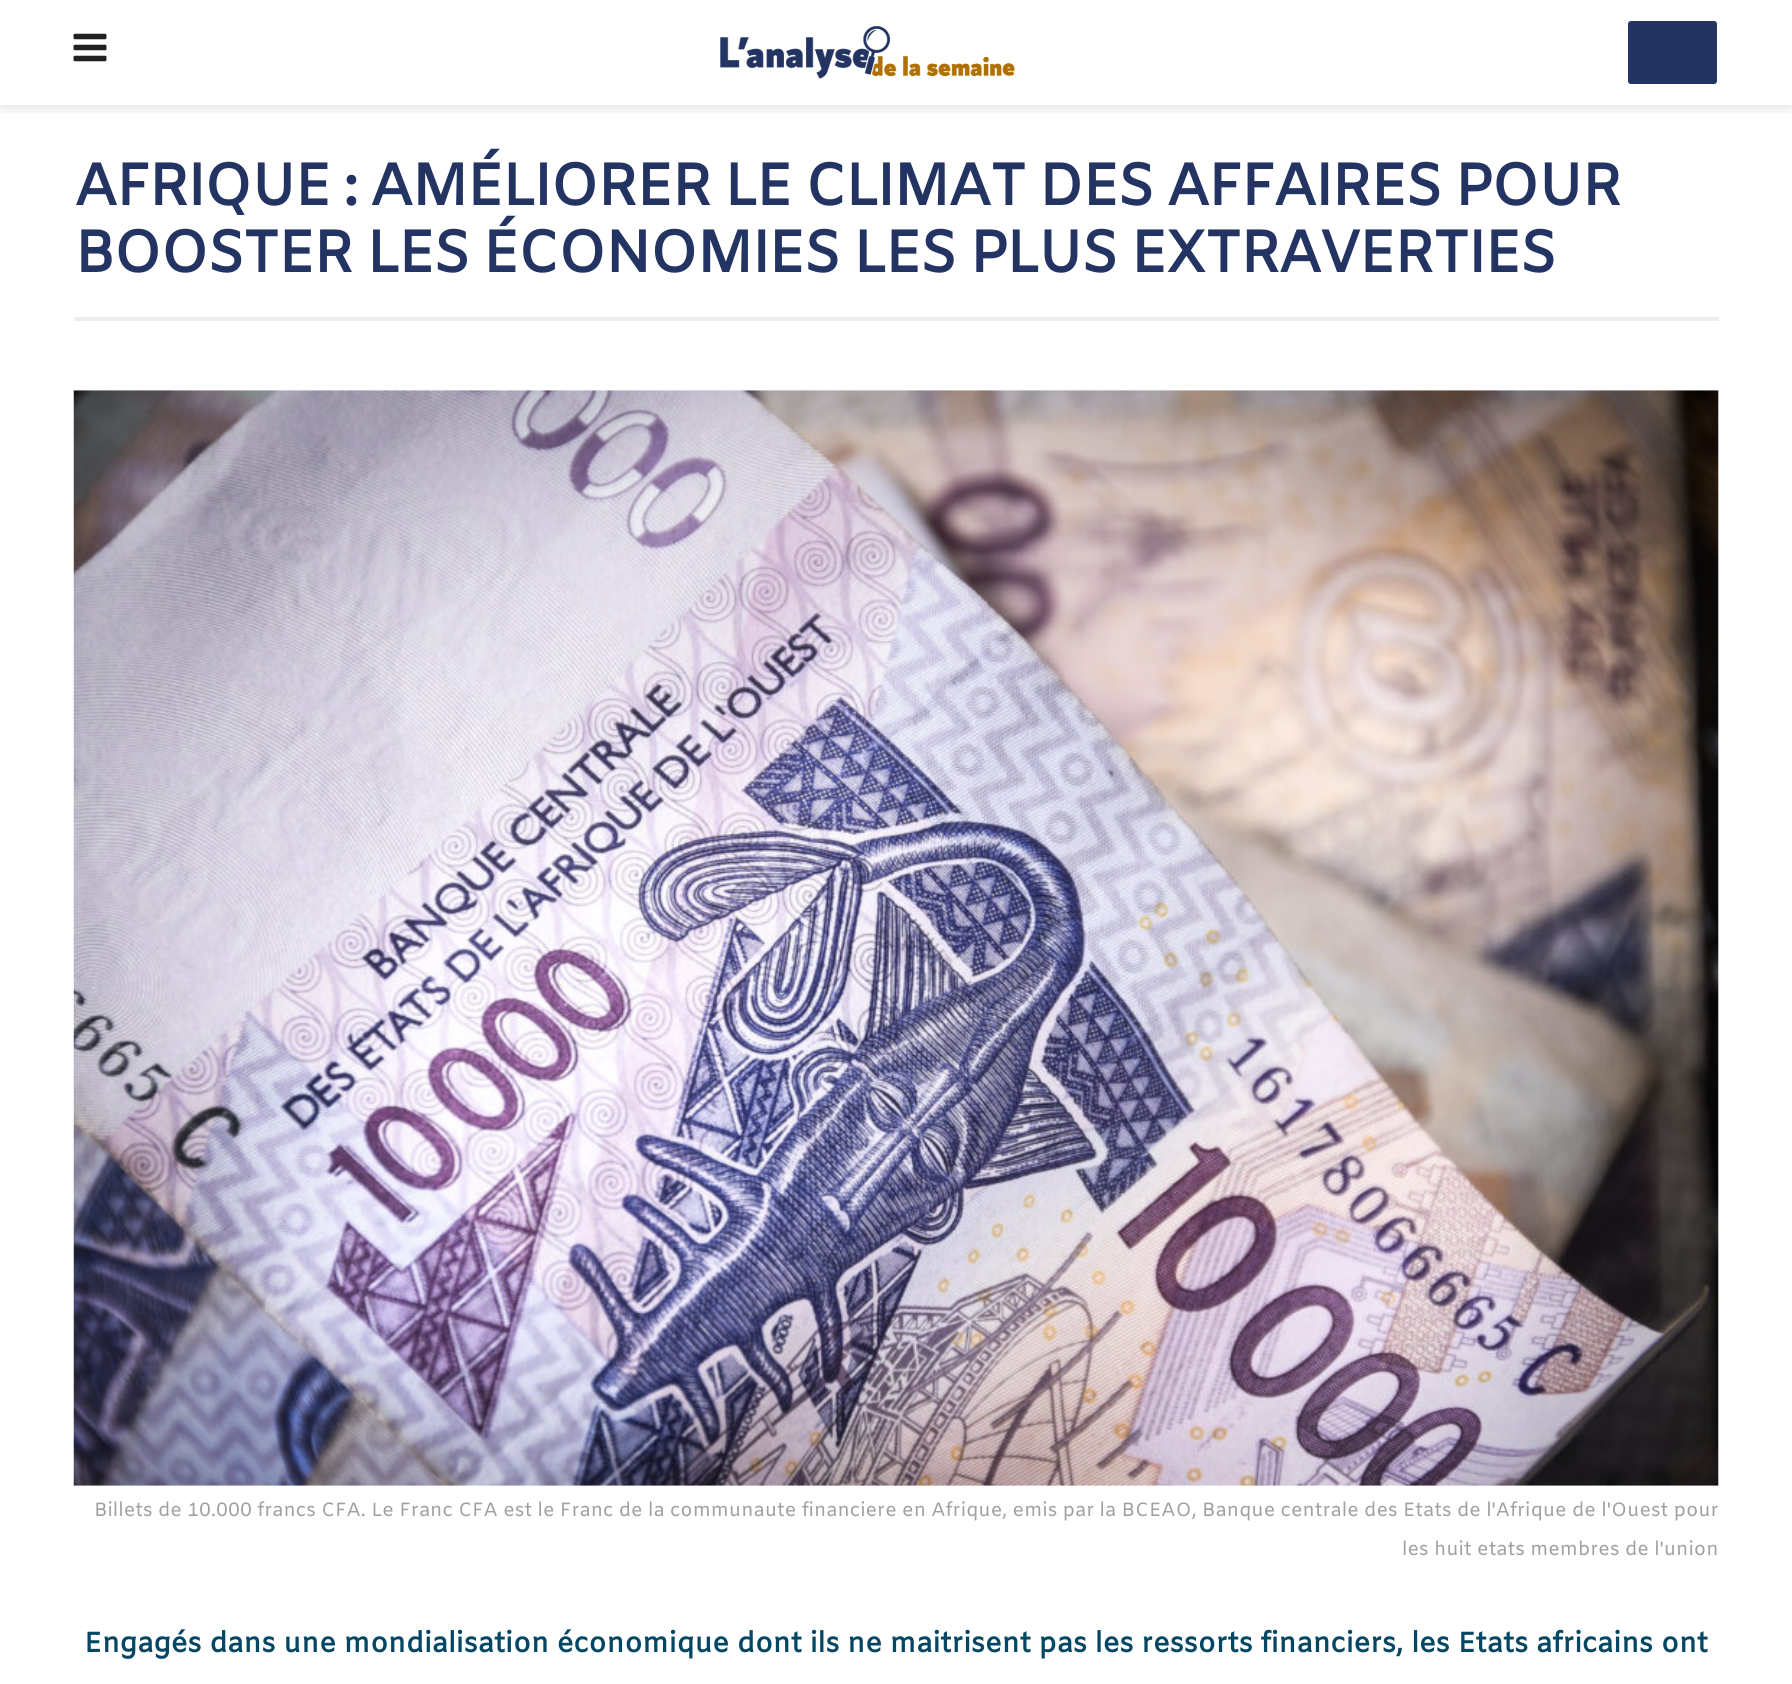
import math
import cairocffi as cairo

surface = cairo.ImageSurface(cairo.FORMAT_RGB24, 1792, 1684)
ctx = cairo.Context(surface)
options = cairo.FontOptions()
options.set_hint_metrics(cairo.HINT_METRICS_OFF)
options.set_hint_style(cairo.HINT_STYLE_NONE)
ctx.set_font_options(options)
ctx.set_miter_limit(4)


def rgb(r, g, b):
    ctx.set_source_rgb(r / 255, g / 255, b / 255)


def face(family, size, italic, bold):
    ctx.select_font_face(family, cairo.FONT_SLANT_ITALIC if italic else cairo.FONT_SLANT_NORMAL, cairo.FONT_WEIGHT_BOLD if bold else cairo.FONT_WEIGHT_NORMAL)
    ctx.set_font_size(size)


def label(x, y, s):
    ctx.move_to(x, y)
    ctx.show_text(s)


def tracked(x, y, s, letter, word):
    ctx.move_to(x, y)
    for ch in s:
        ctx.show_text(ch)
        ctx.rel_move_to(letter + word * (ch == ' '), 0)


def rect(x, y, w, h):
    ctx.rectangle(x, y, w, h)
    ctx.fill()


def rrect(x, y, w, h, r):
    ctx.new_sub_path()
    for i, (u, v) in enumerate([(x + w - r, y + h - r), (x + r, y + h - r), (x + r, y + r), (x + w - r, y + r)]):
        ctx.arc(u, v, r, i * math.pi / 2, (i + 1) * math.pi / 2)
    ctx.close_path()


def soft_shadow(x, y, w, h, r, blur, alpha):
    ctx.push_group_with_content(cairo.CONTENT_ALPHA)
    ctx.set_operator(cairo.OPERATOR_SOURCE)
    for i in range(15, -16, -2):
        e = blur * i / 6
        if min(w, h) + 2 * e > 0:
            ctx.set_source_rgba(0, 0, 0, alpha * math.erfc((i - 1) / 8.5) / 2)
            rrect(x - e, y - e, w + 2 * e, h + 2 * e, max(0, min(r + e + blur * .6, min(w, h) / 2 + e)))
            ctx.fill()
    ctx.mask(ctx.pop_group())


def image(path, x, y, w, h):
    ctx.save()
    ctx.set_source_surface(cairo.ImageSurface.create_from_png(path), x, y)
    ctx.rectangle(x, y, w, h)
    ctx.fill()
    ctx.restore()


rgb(255, 255, 255)
ctx.paint()
ctx.save()
ctx.rectangle(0, 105, 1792, 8)
ctx.clip()
rgb(0, 0, 0)
soft_shadow(0, 4, 1792, 105, 0, 5, 0.1)
ctx.restore()
image('image0.png', 73, 33, 34, 29)
image('image1.png', 720, 26, 295, 53)
rgb(35, 52, 99)
rrect(1627, 20, 91, 65, 4)
ctx.fill_preserve()
rgb(255, 255, 255)
ctx.stroke()
face('Amiko', 58.8, 0, 1)
rgb(35, 52, 99)
tracked(74, 205, 'AFRIQUE : AMÉLIORER LE CLIMAT DES AFFAIRES POUR', -2.35, -0.25)
tracked(74, 272, 'BOOSTER LES ÉCONOMIES LES PLUS EXTRAVERTIES', -2.35, 0)
rgb(238, 238, 238)
rect(74, 317, 1645, 4)
rgb(247, 247, 247)
rect(74, 390, 1645, 1096)
image('image2.png', 73, 390, 1646, 1096)
face('Amiko', 19.25, 0, 0)
rgb(160, 160, 160)
label(94, 1516, 'Billets de 10.000 francs CFA. Le Franc CFA est le Franc de la communaute financiere en Afrique, emis par la BCEAO, Banque centrale des Etats de l\'Afrique de l\'Ouest pour')
label(1402, 1555, 'les huit etats membres de l\'union')
face('Amiko', 28, 0, 1)
rgb(3, 71, 100)
label(84, 1652, 'Engagés dans une mondialisation économique dont ils ne maitrisent pas les ressorts financiers, les Etats africains ont')
surface.write_to_png('render.png')
